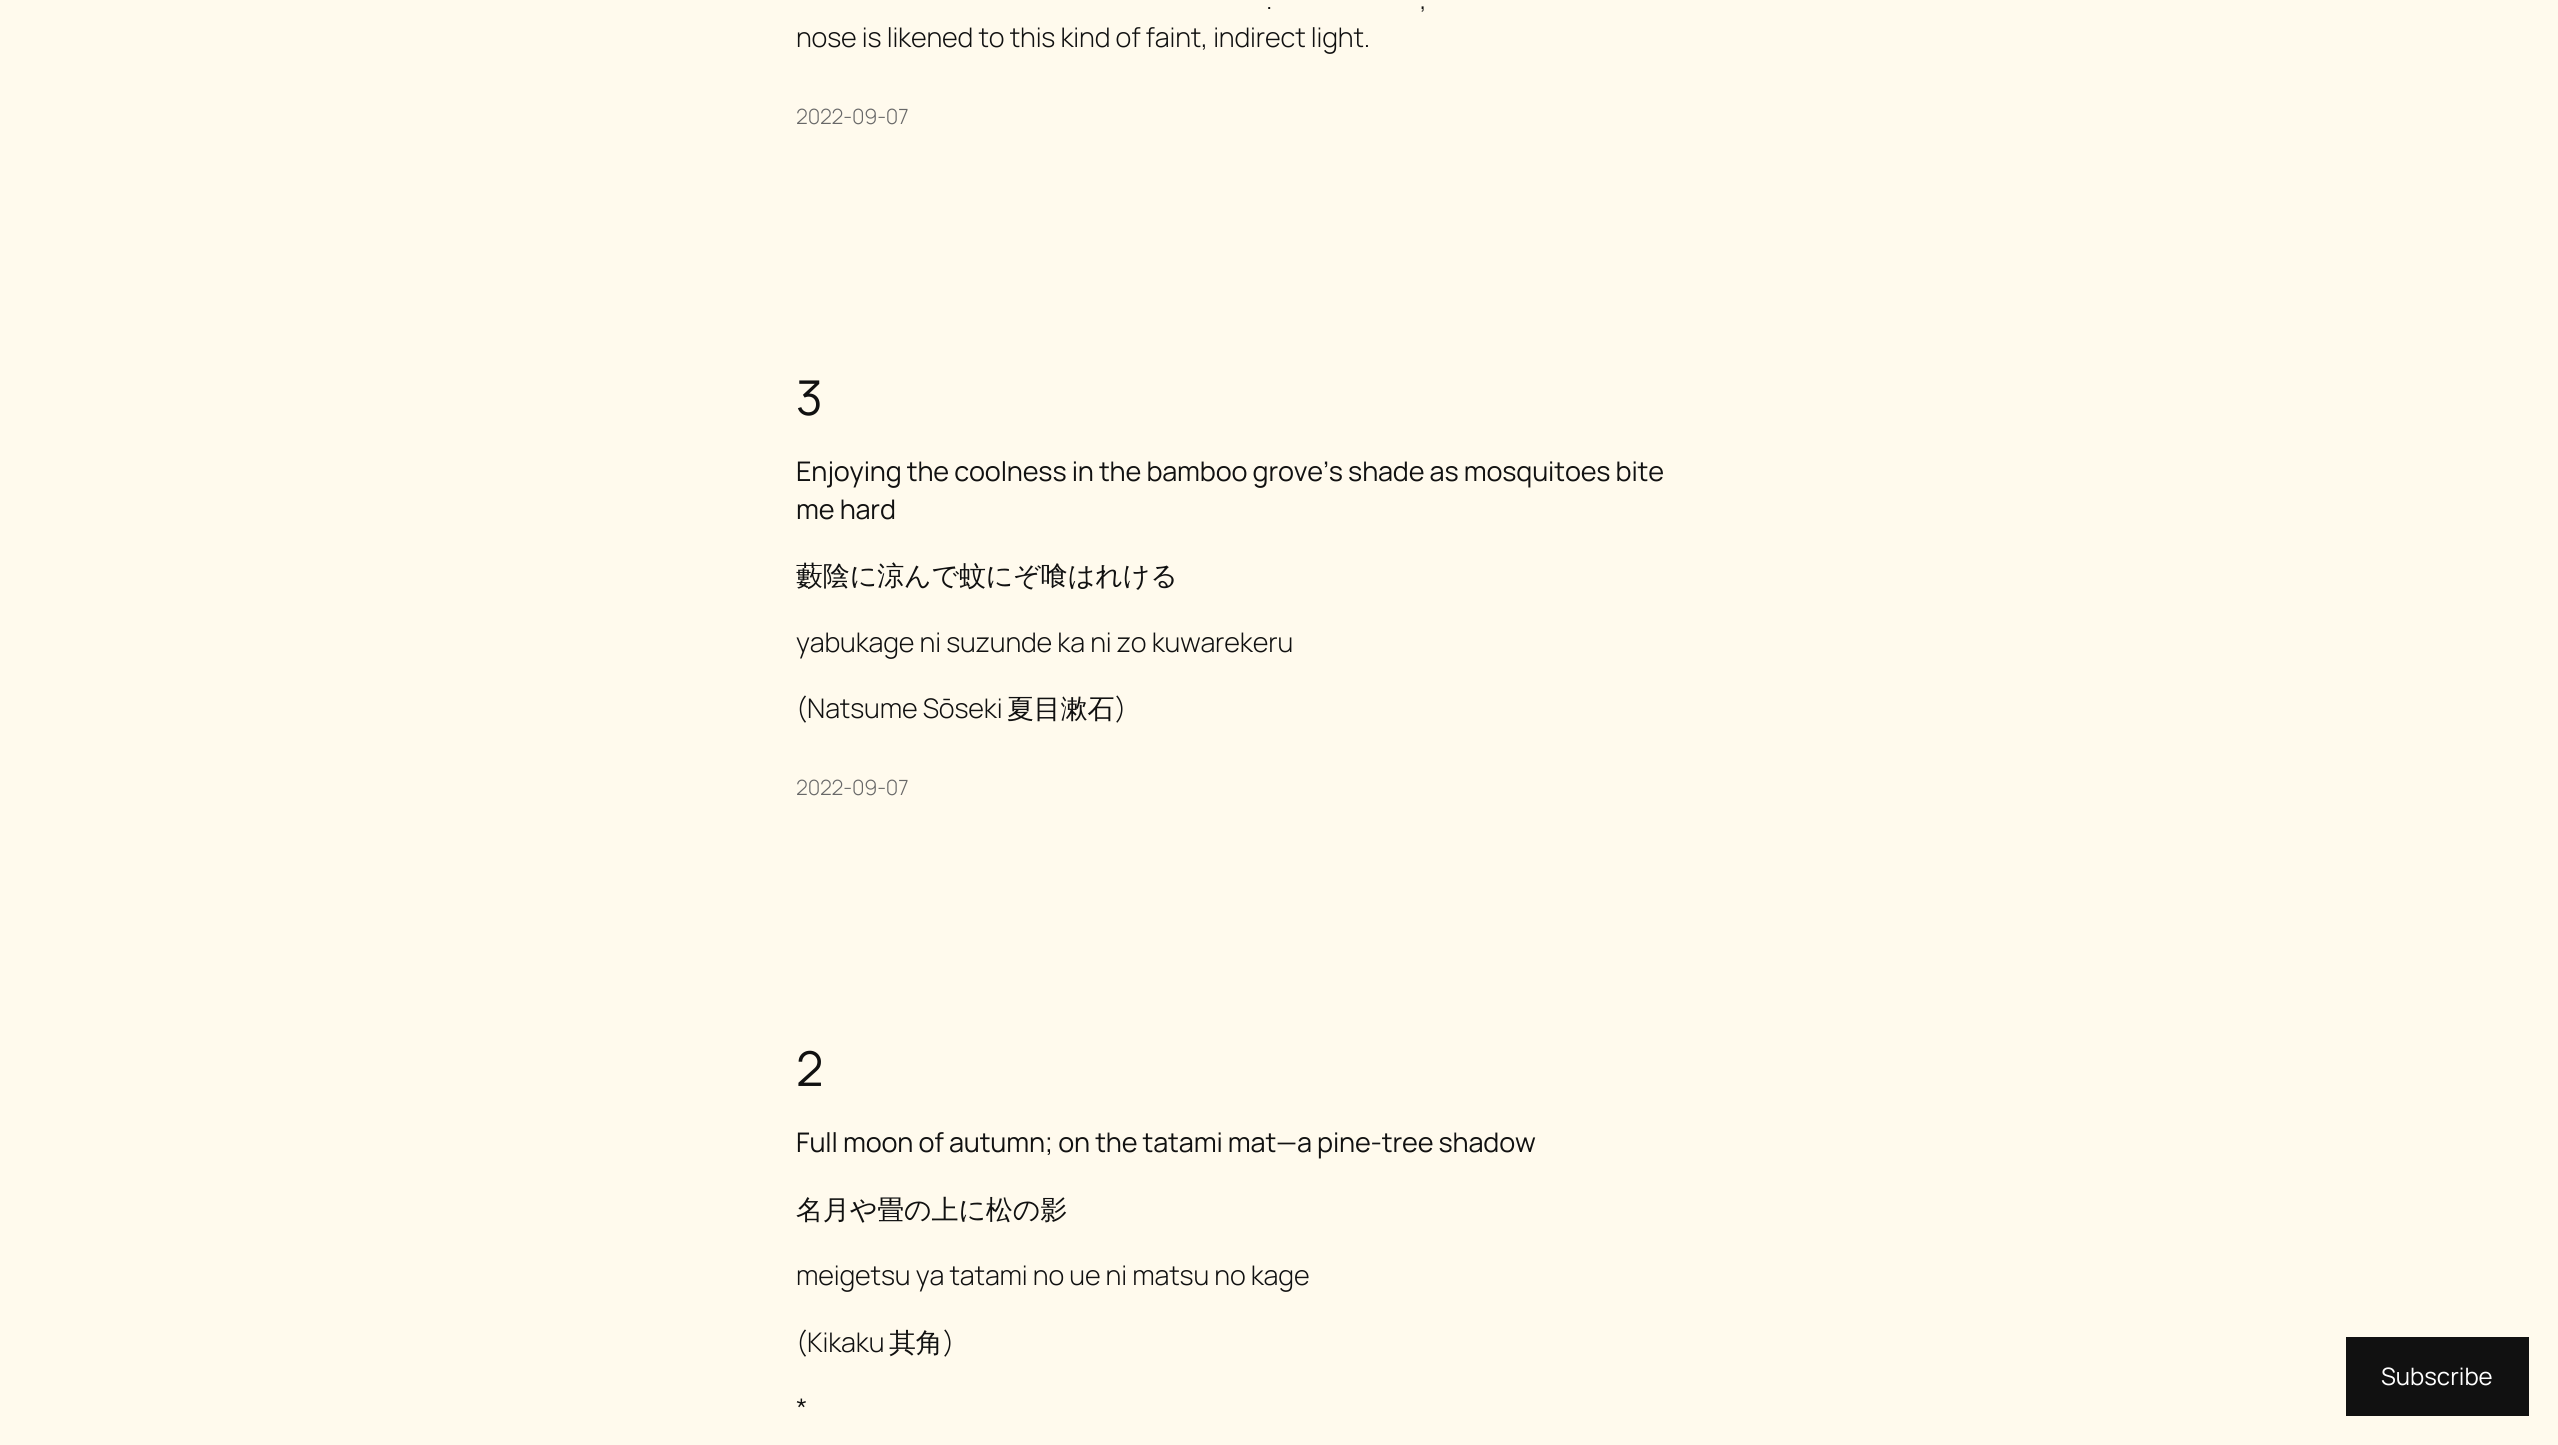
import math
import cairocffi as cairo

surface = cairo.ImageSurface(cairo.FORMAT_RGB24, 2558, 1445)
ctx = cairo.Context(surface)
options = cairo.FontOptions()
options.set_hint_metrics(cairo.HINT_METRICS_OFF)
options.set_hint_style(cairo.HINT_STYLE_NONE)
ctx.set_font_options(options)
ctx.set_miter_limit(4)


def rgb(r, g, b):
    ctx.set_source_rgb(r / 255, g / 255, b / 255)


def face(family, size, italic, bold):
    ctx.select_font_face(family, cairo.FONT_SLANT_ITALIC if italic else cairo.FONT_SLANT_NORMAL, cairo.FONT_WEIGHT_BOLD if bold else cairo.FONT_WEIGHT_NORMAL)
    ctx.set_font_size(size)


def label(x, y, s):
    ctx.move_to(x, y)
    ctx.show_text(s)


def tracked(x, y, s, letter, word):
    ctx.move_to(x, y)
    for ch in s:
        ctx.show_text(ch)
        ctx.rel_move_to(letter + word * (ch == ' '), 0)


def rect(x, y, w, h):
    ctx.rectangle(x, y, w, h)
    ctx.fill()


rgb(255, 250, 237)
ctx.paint()
face('Manrope Light', 27, 0, 0)
rgb(17, 17, 17)
tracked(1266, 9, '.', -0.15, 0)
tracked(1420, 9, ',', -0.15, 0)
tracked(796, 47, 'nose is likened to this kind of faint, indirect light.', -0.15, 0)
face('Manrope Light', 21, 0, 0)
rgb(104, 104, 104)
tracked(796, 124, '2022-09-07', -0.15, 0)
face('Manrope', 48, 0, 0)
rgb(17, 17, 17)
tracked(796, 415, '3', -0.15, 0)
face('Manrope', 27, 0, 0)
tracked(796, 481, 'Enjoying the coolness in the bamboo grove’s shade as mosquitoes bite', -0.15, 0)
tracked(796, 519, 'me hard', -0.15, 0)
face('WenQuanYi Zen Hei Medium', 27, 0, 0)
tracked(796, 585, '藪陰に涼んで蚊にぞ喰はれける', -0.15, 0)
face('Manrope Light', 27, 0, 0)
tracked(796, 652, 'yabukage ni suzunde ka ni zo kuwarekeru', -0.15, 0)
tracked(796, 718, '(Natsume Sōseki', -0.15, 0)
face('WenQuanYi Zen Hei Medium', 27, 0, 0)
tracked(1007, 718, '夏目漱石', -0.15, 0)
face('Manrope Light', 27, 0, 0)
tracked(1115, 718, ')', -0.15, 0)
face('Manrope Light', 21, 0, 0)
rgb(104, 104, 104)
tracked(796, 795, '2022-09-07', -0.15, 0)
face('Manrope', 48, 0, 0)
rgb(17, 17, 17)
tracked(796, 1086, '2', -0.15, 0)
face('Manrope', 27, 0, 0)
tracked(796, 1152, 'Full moon of autumn; on the tatami mat—a pine-tree shadow', -0.15, 0)
face('WenQuanYi Zen Hei Medium', 27, 0, 0)
tracked(796, 1219, '名月や畳の上に松の影', -0.15, 0)
face('Manrope Light', 27, 0, 0)
tracked(796, 1285, 'meigetsu ya tatami no ue ni matsu no kage', -0.15, 0)
tracked(796, 1352, '(Kikaku', -0.15, 0)
face('WenQuanYi Zen Hei Medium', 27, 0, 0)
tracked(889, 1352, '其角', -0.15, 0)
face('Manrope Light', 27, 0, 0)
tracked(943, 1352, ')', -0.15, 0)
tracked(796, 1418, '*', -0.15, 0)
rect(2346, 1337, 183, 79)
face('Manrope', 24, 0, 0)
rgb(255, 255, 255)
label(2381, 1385, 'Subscribe')
surface.write_to_png('render.png')
